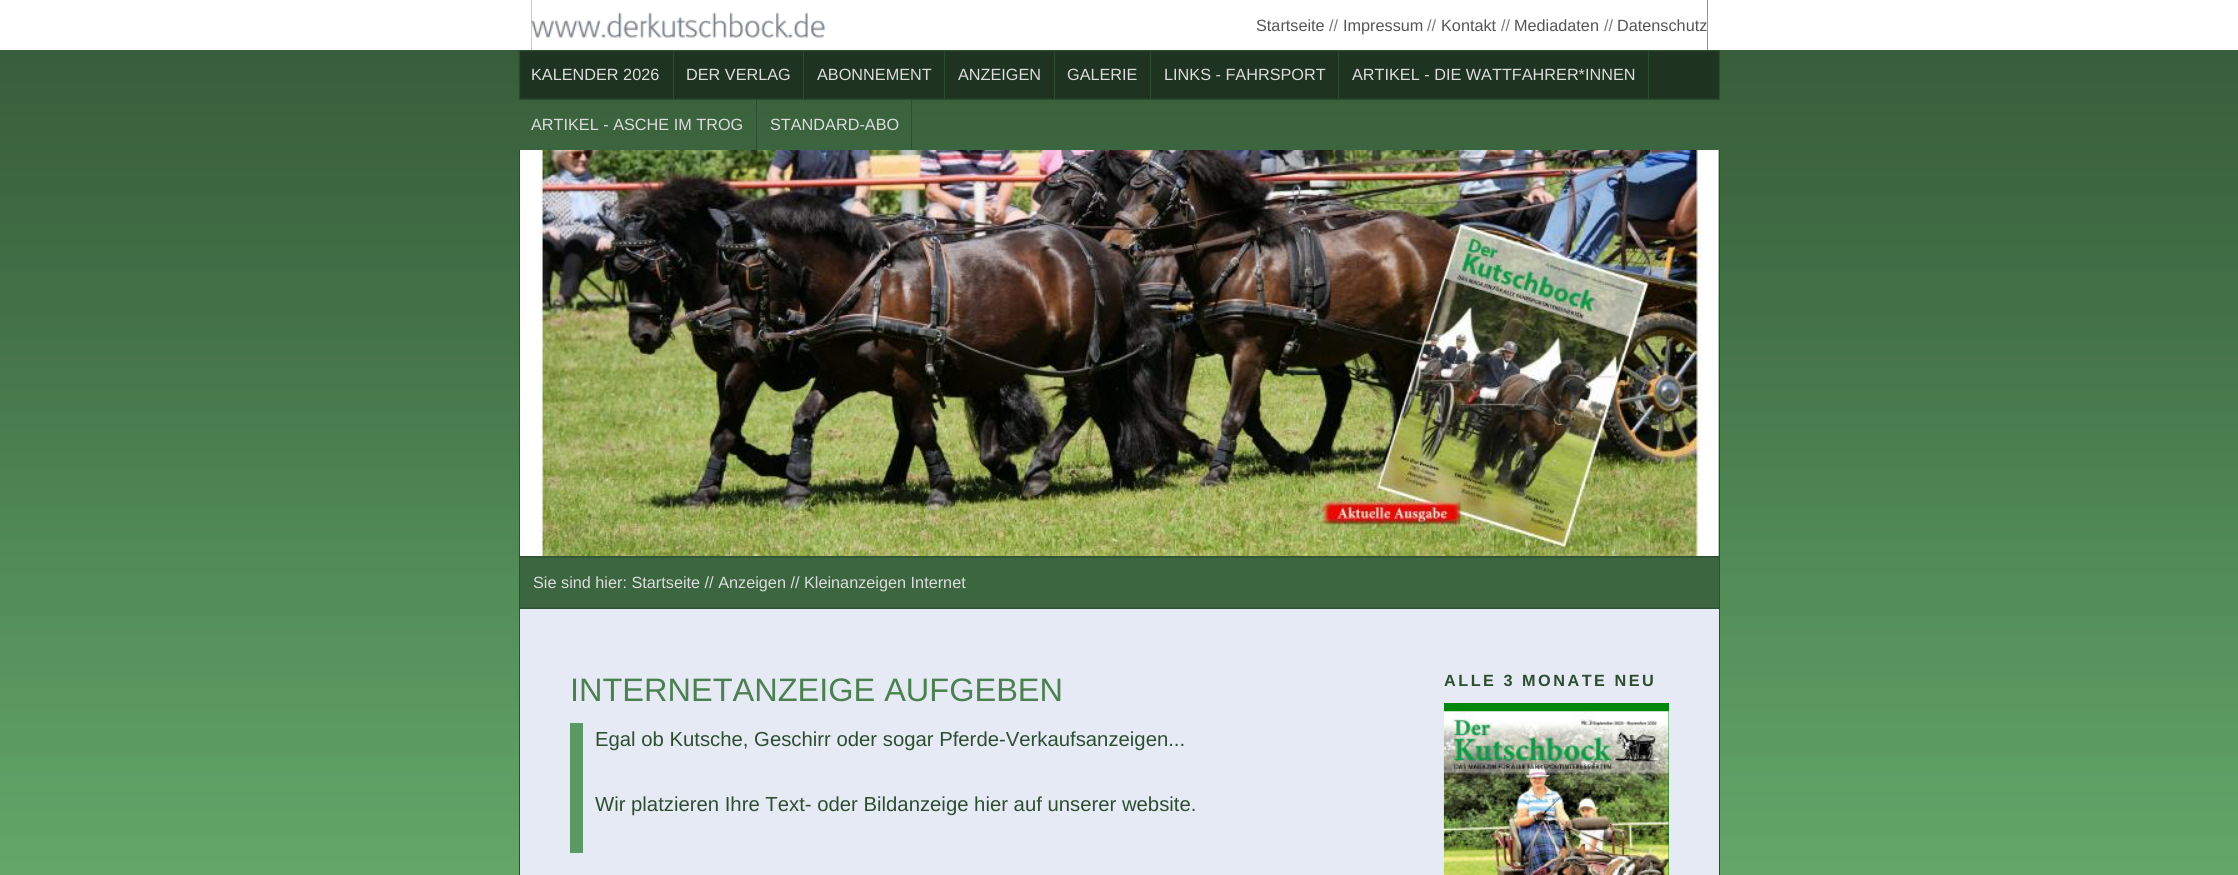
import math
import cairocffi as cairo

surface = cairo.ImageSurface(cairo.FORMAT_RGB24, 2238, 875)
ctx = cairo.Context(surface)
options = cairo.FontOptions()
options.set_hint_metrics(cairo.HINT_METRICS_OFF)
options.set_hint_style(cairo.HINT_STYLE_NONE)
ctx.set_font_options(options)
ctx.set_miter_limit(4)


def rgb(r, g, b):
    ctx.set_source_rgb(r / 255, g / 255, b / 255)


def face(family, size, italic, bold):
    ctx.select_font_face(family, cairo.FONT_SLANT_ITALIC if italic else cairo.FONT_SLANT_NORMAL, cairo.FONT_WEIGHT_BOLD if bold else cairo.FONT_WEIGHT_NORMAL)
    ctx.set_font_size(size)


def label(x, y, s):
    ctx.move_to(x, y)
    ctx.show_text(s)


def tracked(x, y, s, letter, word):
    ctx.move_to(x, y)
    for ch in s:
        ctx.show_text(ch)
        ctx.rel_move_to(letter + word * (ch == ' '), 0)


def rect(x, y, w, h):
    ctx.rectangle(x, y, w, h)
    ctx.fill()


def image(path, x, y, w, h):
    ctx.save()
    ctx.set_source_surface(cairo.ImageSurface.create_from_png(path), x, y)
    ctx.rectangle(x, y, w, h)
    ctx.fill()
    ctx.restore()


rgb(255, 255, 255)
ctx.paint()
image('image0.png', 0, 50, 2238, 825)
rgb(30, 51, 32)
rect(531, 0, 1177, 50)
image('image1.png', 531, 0, 1177, 50)
face('Liberation Sans', 16.25, 0, 0)
rgb(85, 85, 85)
label(1256, 31, 'Startseite')
rgb(118, 121, 130)
label(1329, 31, '//')
rgb(85, 85, 85)
label(1343, 31, 'Impressum')
rgb(118, 121, 130)
label(1427, 31, '//')
rgb(85, 85, 85)
label(1441, 31, 'Kontakt')
rgb(118, 121, 130)
label(1501, 31, '//')
rgb(85, 85, 85)
label(1514, 31, 'Mediadaten')
rgb(118, 121, 130)
label(1604, 31, '//')
rgb(85, 85, 85)
label(1617, 31, 'Datenschutz')
image('image2.png', 518, 50, 1202, 50)
rgb(45, 77, 48)
rect(673, 50, 1, 50)
rgb(221, 221, 221)
label(531, 80, 'KALENDER 2026')
rgb(45, 77, 48)
rect(803, 50, 1, 50)
rgb(221, 221, 221)
label(686, 80, 'DER VERLAG')
rgb(45, 77, 48)
rect(944, 50, 1, 50)
rgb(221, 221, 221)
label(817, 80, 'ABONNEMENT')
rgb(45, 77, 48)
rect(1054, 50, 1, 50)
rgb(221, 221, 221)
label(958, 80, 'ANZEIGEN')
rgb(45, 77, 48)
rect(1150, 50, 1, 50)
rgb(221, 221, 221)
label(1067, 80, 'GALERIE')
rgb(45, 77, 48)
rect(1338, 50, 1, 50)
rgb(221, 221, 221)
label(1164, 80, 'LINKS - FAHRSPORT')
rgb(45, 77, 48)
rect(1648, 50, 1, 50)
rgb(221, 221, 221)
label(1352, 80, 'ARTIKEL - DIE WATTFAHRER*INNEN')
rgb(45, 77, 48)
rect(756, 100, 1, 50)
rgb(221, 221, 221)
label(531, 130, 'ARTIKEL - ASCHE IM TROG')
rgb(45, 77, 48)
rect(911, 100, 1, 50)
rgb(221, 221, 221)
label(770, 130, 'STANDARD-ABO')
rgb(45, 77, 48)
rect(1719, 150, 1, 459)
rect(519, 150, 1, 406)
image('image3.png', 520, 150, 1199, 406)
rgb(60, 102, 64)
rect(520, 556, 1199, 53)
image('image4.png', 518, 556, 1201, 53)
rgb(45, 77, 48)
rect(519, 556, 1, 53)
rgb(221, 221, 221)
label(533, 588, 'Sie sind hier: Startseite // Anzeigen // Kleinanzeigen Internet')
rgb(230, 234, 245)
rect(520, 609, 1199, 266)
rgb(45, 77, 48)
rect(1719, 609, 1, 266)
rect(519, 609, 1, 266)
face('Liberation Sans', 32.5, 0, 0)
rgb(75, 128, 80)
label(570, 701, 'INTERNETANZEIGE AUFGEBEN')
rgb(90, 153, 97)
rect(570, 723, 13, 130)
face('Liberation Sans', 20.3, 0, 0)
rgb(45, 77, 48)
label(595, 746, 'Egal ob Kutsche, Geschirr oder sogar Pferde-Verkaufsanzeigen...')
label(595, 811, 'Wir platzieren Ihre Text- oder Bildanzeige hier auf unserer website.')
face('Liberation Sans', 16.25, 0, 1)
tracked(1444, 686, 'ALLE 3 MONATE NEU', 2.5, 0)
rgb(0, 133, 13)
rect(1444, 703, 225, 172)
image('image5.png', 1443, 711, 226, 164)
surface.write_to_png('render.png')
